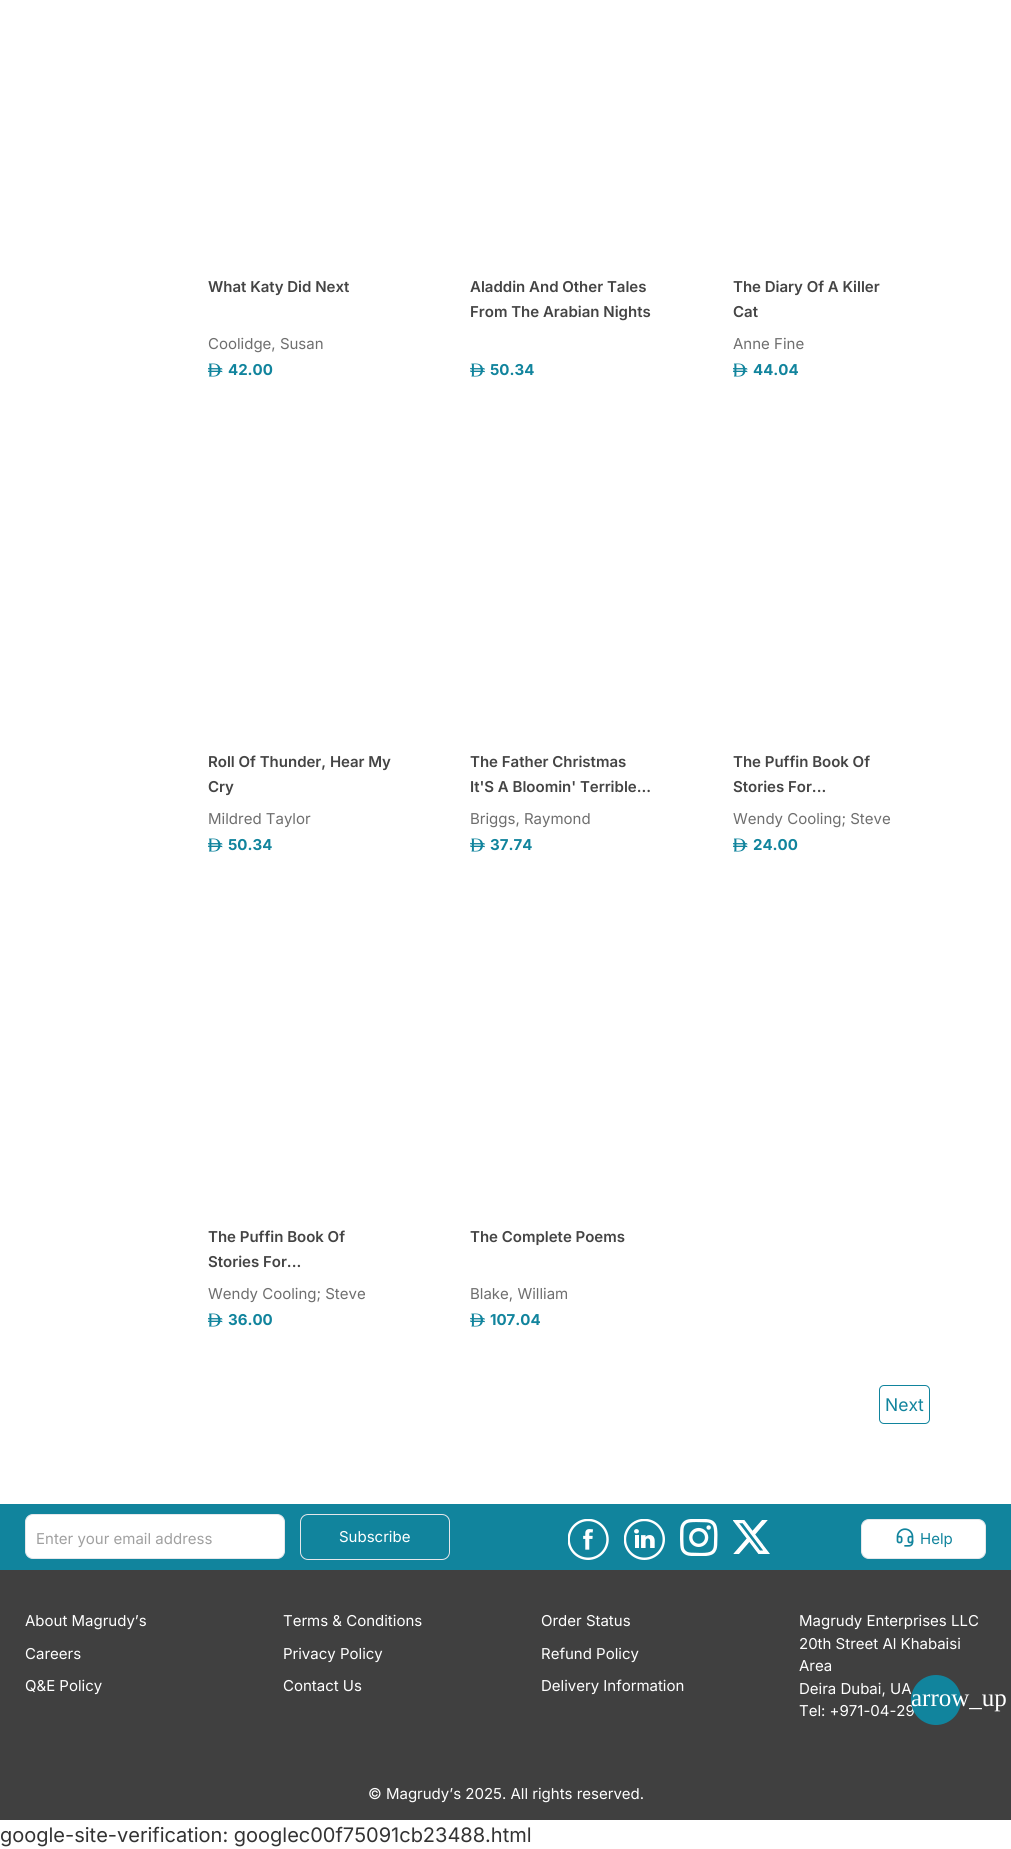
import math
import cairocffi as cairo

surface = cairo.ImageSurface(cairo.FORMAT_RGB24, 1011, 1849)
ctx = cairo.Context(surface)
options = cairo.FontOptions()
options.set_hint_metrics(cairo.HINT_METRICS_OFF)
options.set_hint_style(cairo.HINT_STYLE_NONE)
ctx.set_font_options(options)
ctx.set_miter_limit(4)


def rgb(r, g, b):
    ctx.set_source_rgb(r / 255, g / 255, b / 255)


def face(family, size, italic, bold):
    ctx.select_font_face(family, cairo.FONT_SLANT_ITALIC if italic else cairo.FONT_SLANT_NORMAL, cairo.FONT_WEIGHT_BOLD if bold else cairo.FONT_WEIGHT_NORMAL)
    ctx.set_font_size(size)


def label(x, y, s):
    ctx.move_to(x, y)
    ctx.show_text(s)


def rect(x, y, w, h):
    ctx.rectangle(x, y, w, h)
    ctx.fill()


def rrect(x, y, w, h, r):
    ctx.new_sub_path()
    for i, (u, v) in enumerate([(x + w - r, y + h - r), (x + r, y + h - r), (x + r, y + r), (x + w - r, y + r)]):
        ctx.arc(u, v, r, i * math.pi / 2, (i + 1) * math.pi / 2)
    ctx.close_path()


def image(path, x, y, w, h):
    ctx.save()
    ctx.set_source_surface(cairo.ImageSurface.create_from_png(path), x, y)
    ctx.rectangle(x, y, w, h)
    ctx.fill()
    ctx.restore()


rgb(255, 255, 255)
ctx.paint()
face('Inter SemiBold', 15, 0, 0)
rgb(68, 68, 68)
label(208, 292, 'What Katy Did Next')
face('Inter', 15, 0, 0)
rgb(110, 110, 110)
label(208, 349, 'Coolidge, Susan')
image('image0.png', 208, 363, 15, 14)
face('Inter', 15, 0, 1)
rgb(17, 132, 157)
label(228, 375, '42.00')
face('Inter SemiBold', 15, 0, 0)
rgb(68, 68, 68)
label(470, 292, 'Aladdin And Other Tales')
label(470, 317, 'From The Arabian Nights')
image('image1.png', 470, 363, 15, 14)
face('Inter', 15, 0, 1)
rgb(17, 132, 157)
label(490, 375, '50.34')
face('Inter SemiBold', 15, 0, 0)
rgb(68, 68, 68)
label(733, 292, 'The Diary Of A Killer')
label(733, 317, 'Cat')
face('Inter', 15, 0, 0)
rgb(110, 110, 110)
label(733, 349, 'Anne Fine')
image('image0.png', 733, 363, 15, 14)
face('Inter', 15, 0, 1)
rgb(17, 132, 157)
label(753, 375, '44.04')
face('Inter SemiBold', 15, 0, 0)
rgb(68, 68, 68)
label(208, 767, 'Roll Of Thunder, Hear My')
label(208, 792, 'Cry')
face('Inter', 15, 0, 0)
rgb(110, 110, 110)
label(208, 824, 'Mildred Taylor')
image('image0.png', 208, 838, 15, 14)
face('Inter', 15, 0, 1)
rgb(17, 132, 157)
label(228, 850, '50.34')
face('Inter SemiBold', 15, 0, 0)
rgb(68, 68, 68)
label(470, 767, 'The Father Christmas')
label(470, 792, 'It\'S A Bloomin\' Terrible...')
face('Inter', 15, 0, 0)
rgb(110, 110, 110)
label(470, 824, 'Briggs, Raymond')
image('image1.png', 470, 838, 15, 14)
face('Inter', 15, 0, 1)
rgb(17, 132, 157)
label(490, 850, '37.74')
face('Inter SemiBold', 15, 0, 0)
rgb(68, 68, 68)
label(733, 767, 'The Puffin Book Of')
label(733, 792, 'Stories For...')
face('Inter', 15, 0, 0)
rgb(110, 110, 110)
label(733, 824, 'Wendy Cooling; Steve')
image('image0.png', 733, 838, 15, 14)
face('Inter', 15, 0, 1)
rgb(17, 132, 157)
label(753, 850, '24.00')
face('Inter SemiBold', 15, 0, 0)
rgb(68, 68, 68)
label(208, 1242, 'The Puffin Book Of')
label(208, 1267, 'Stories For...')
face('Inter', 15, 0, 0)
rgb(110, 110, 110)
label(208, 1299, 'Wendy Cooling; Steve')
image('image0.png', 208, 1313, 15, 14)
face('Inter', 15, 0, 1)
rgb(17, 132, 157)
label(228, 1325, '36.00')
face('Inter SemiBold', 15, 0, 0)
rgb(68, 68, 68)
label(470, 1242, 'The Complete Poems')
face('Inter', 15, 0, 0)
rgb(110, 110, 110)
label(470, 1299, 'Blake, William')
image('image1.png', 470, 1313, 15, 14)
face('Inter', 15, 0, 1)
rgb(17, 132, 157)
label(490, 1325, '107.04')
rrect(879.5, 1385.5, 50, 38, 4.5)
ctx.set_line_width(1)
ctx.stroke()
face('Inter', 17.5, 0, 0)
label(885, 1411, 'Next')
rgb(64, 64, 64)
rect(0, 1570, 1011, 250)
face('Inter', 15, 0, 0)
rgb(255, 255, 255)
label(799, 1716, 'Tel: +971-04-29')
rgb(17, 132, 157)
ctx.new_path()
ctx.arc(936, 1700, 25, 0, 2 * math.pi)
ctx.fill()
face('Liberation Serif', 25, 0, 0)
rgb(255, 255, 255)
label(911, 1706, 'arrow_up')
rgb(17, 132, 157)
rect(0, 1504, 1011, 66)
rgb(255, 255, 255)
rrect(25.5, 1514.5, 259, 44, 7.5)
ctx.fill_preserve()
rgb(229, 231, 235)
ctx.stroke()
face('Inter', 15, 0, 0)
rgb(160, 160, 160)
label(36, 1544, 'Enter your email address')
rrect(300.5, 1514.5, 149, 45, 7.5)
rgb(229, 231, 235)
ctx.stroke()
rgb(255, 255, 255)
label(339, 1542, 'Subscribe')
image('image2.png', 568, 1519, 41, 41)
image('image3.png', 624, 1519, 41, 41)
image('image4.png', 680, 1519, 38, 37)
image('image5.png', 733, 1520, 37, 34)
rrect(861.5, 1519.5, 124, 39, 7.5)
ctx.fill_preserve()
rgb(229, 231, 235)
ctx.stroke()
image('image6.png', 896, 1528, 18, 19)
rgb(17, 132, 157)
label(920, 1544, 'Help')
rgb(255, 255, 255)
label(25, 1626, 'About Magrudy’s')
label(25, 1659, 'Careers')
label(25, 1691, 'Q&E Policy')
label(283, 1626, 'Terms & Conditions')
label(283, 1659, 'Privacy Policy')
label(283, 1691, 'Contact Us')
label(541, 1626, 'Order Status')
label(541, 1659, 'Refund Policy')
label(541, 1691, 'Delivery Information')
label(799, 1626, 'Magrudy Enterprises LLC')
label(799, 1649, '20th Street Al Khabaisi')
label(799, 1671, 'Area')
label(799, 1694, 'Deira Dubai, UA')
label(368, 1799, '© Magrudy’s 2025. All rights reserved.')
face('Inter', 20, 0, 0)
rgb(51, 51, 51)
label(0, 1842, 'google-site-verification: googlec00f75091cb23488.html')
surface.write_to_png('render.png')
